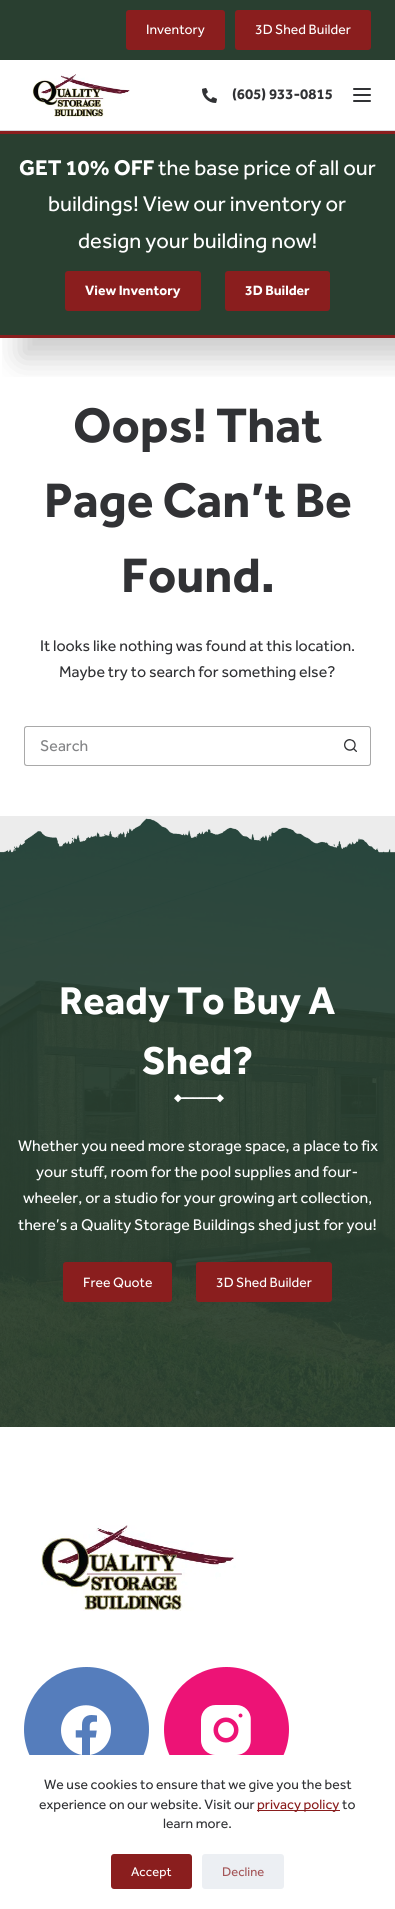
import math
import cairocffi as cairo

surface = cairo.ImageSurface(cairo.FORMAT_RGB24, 395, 1909)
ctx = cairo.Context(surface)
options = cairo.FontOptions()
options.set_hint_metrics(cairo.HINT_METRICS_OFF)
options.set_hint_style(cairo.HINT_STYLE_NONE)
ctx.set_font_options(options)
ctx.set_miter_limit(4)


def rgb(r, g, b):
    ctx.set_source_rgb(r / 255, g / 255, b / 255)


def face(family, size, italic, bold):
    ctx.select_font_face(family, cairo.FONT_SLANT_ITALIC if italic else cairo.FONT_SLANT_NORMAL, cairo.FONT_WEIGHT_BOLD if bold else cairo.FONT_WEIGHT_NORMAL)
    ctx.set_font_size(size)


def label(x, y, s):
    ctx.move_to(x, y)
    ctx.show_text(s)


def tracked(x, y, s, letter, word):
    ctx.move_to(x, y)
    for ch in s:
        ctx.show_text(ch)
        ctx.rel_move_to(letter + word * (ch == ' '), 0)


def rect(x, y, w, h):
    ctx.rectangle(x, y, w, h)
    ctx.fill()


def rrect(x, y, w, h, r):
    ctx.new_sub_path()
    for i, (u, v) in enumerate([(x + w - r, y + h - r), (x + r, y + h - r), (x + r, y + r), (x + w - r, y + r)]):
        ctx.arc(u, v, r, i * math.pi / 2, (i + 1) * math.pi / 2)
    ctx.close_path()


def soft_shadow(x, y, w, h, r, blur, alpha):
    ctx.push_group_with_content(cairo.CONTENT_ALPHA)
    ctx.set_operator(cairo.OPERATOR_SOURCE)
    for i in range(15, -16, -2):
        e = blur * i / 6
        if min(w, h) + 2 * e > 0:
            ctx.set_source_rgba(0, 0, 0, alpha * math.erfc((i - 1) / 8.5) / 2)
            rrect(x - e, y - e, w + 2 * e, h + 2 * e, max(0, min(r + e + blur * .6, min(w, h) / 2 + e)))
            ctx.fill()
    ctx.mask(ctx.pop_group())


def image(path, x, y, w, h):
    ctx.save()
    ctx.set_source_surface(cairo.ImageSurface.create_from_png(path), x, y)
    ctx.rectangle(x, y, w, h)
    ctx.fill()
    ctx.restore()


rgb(255, 255, 255)
ctx.paint()
rgb(41, 63, 48)
rect(0, 0, 395, 60)
rgb(138, 30, 30)
rrect(126, 10, 99, 40, 3)
ctx.fill()
face('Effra', 14, 0, 0)
rgb(255, 255, 255)
label(146, 34, 'Inventory')
rgb(138, 30, 30)
rrect(235, 10, 136, 40, 3)
ctx.fill()
rgb(255, 255, 255)
label(255, 34, '3D Shed Builder')
rgb(41, 63, 48)
rect(0, 134, 395, 201)
ctx.save()
ctx.rectangle(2, 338, 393, 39)
ctx.clip()
rgb(0, 0, 0)
soft_shadow(20, 151, 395, 207, 0, 15, 0.2)
ctx.restore()
rgb(255, 255, 255)
rect(26, 126, 369, 4)
rgb(213, 216, 220)
rect(0, 130, 395, 1)
image('image0.png', 32, 74, 98, 43)
image('image1.png', 202, 88, 15, 15)
face('Effra', 15, 0, 1)
rgb(49, 50, 53)
label(232, 99, '(605) 933-0815')
rrect(353, 88, 18, 2, 1)
ctx.fill()
rrect(353, 94, 18, 2, 1)
ctx.fill()
rrect(353, 100, 18, 2, 1)
ctx.fill()
rgb(138, 30, 30)
rect(0, 131, 395, 3)
rect(0, 335, 395, 3)
face('Effra', 22, 0, 1)
rgb(255, 255, 255)
label(19, 175, 'GET 10% OFF')
face('Effra', 22, 0, 0)
label(158, 175, 'the base price of all our')
label(48, 211, 'buildings! View our inventory or')
label(78, 248, 'design your building now!')
rgb(138, 30, 30)
rrect(65, 271, 136, 40, 3)
ctx.fill()
face('Effra', 14, 0, 1)
rgb(255, 255, 255)
label(85, 295, 'View Inventory')
rgb(138, 30, 30)
rrect(225, 271, 105, 40, 3)
ctx.fill()
rgb(255, 255, 255)
label(245, 295, '3D Builder')
face('Effra', 50, 0, 1)
rgb(49, 50, 53)
label(73, 442, 'Oops! That')
label(44, 517, 'Page Can’t Be')
label(121, 592, 'Found.')
face('Effra', 16, 0, 0)
label(40, 651, 'It looks like nothing was found at this location.')
label(59, 677, 'Maybe try to search for something else?')
rgb(169, 169, 169)
ctx.set_fill_rule(cairo.FILL_RULE_EVEN_ODD)
ctx.new_path()
ctx.move_to(27, 726)
ctx.line_to(331, 726)
ctx.line_to(331, 766)
ctx.line_to(27, 766)
ctx.curve_to(25, 766, 24, 765, 24, 763)
ctx.line_to(24, 729)
ctx.curve_to(24, 727, 25, 726, 27, 726)
ctx.close_path()
ctx.move_to(27, 727)
ctx.line_to(331, 727)
ctx.line_to(331, 765)
ctx.line_to(27, 765)
ctx.curve_to(26, 765, 25, 764, 25, 763)
ctx.line_to(25, 729)
ctx.curve_to(25, 728, 26, 727, 27, 727)
ctx.close_path()
ctx.fill()
rgb(131, 132, 134)
label(40, 751, 'Search')
rgb(169, 169, 169)
ctx.new_path()
ctx.move_to(331, 726)
ctx.line_to(368, 726)
ctx.curve_to(370, 726, 371, 727, 371, 729)
ctx.line_to(371, 763)
ctx.curve_to(371, 765, 370, 766, 368, 766)
ctx.line_to(331, 766)
ctx.close_path()
ctx.move_to(331, 727)
ctx.line_to(368, 727)
ctx.curve_to(369, 727, 370, 728, 370, 729)
ctx.line_to(370, 763)
ctx.curve_to(370, 764, 369, 765, 368, 765)
ctx.line_to(331, 765)
ctx.close_path()
ctx.fill()
image('image2.png', 344, 739, 13, 13)
ctx.new_path()
ctx.move_to(351, 738.5)
ctx.curve_to(355, 738.5, 358.5, 742, 358.5, 746)
rgb(255, 255, 255)
ctx.set_line_width(1.5)
ctx.set_line_cap(cairo.LINE_CAP_ROUND)
ctx.stroke()
image('image3.png', 0, 818, 395, 609)
image('image4.png', 0, 816, 395, 37)
face('Effra', 40, 0, 1)
label(59, 1014, 'Ready To Buy A')
label(142, 1074, 'Shed?')
face('DejaVu Sans', 10, 0, 1)
tracked(174, 1101, '◆', -3, 0)
face('Effra', 10, 0, 1)
tracked(180, 1101, '-------------------------', -3, 0)
face('DejaVu Sans', 10, 0, 1)
tracked(216, 1101, '◆', -3, 0)
face('Effra', 16, 0, 0)
label(18, 1151, 'Whether you need more storage space, a place to fix')
label(36, 1177, 'your stuff, room for the pool supplies and four-')
label(23, 1203, 'wheeler, or a studio for your growing art collection,')
label(18, 1230, 'there’s a Quality Storage Buildings shed just for you!')
rgb(138, 30, 30)
rrect(63, 1262, 109, 40, 3)
ctx.fill()
face('Effra', 14, 0, 0)
rgb(255, 255, 255)
label(83, 1287, 'Free Quote')
rgb(138, 30, 30)
rrect(196, 1262, 136, 40, 3)
ctx.fill()
rgb(255, 255, 255)
label(216, 1287, '3D Shed Builder')
image('image5.png', 41, 1525, 195, 86)
rgb(85, 125, 188)
ctx.arc(86.5, 1729.5, 62.5, 0, 2 * math.pi)
ctx.fill()
image('image6.png', 61, 1705, 50, 50)
rgb(237, 19, 118)
ctx.arc(226.5, 1729.5, 62.5, 0, 2 * math.pi)
ctx.fill()
image('image7.png', 201, 1705, 50, 50)
rgb(255, 255, 255)
rect(29, 1755, 255, 37)
rgb(49, 50, 53)
label(44, 1789, 'We use cookies to ensure that we give you the best')
label(39, 1809, 'experience on our website. Visit our')
rgb(138, 30, 30)
rect(257, 1810, 83, 1)
label(257, 1809, 'privacy policy')
rgb(49, 50, 53)
label(342, 1809, 'to')
label(163, 1828, 'learn more.')
rgb(138, 30, 30)
rrect(111, 1854, 81, 35, 3)
ctx.fill()
face('Effra', 13, 0, 0)
rgb(255, 255, 255)
label(131, 1876, 'Accept')
rgb(236, 239, 243)
rrect(202, 1854, 82, 35, 3)
ctx.fill()
rgb(164, 86, 88)
label(222, 1876, 'Decline')
surface.write_to_png('render.png')
